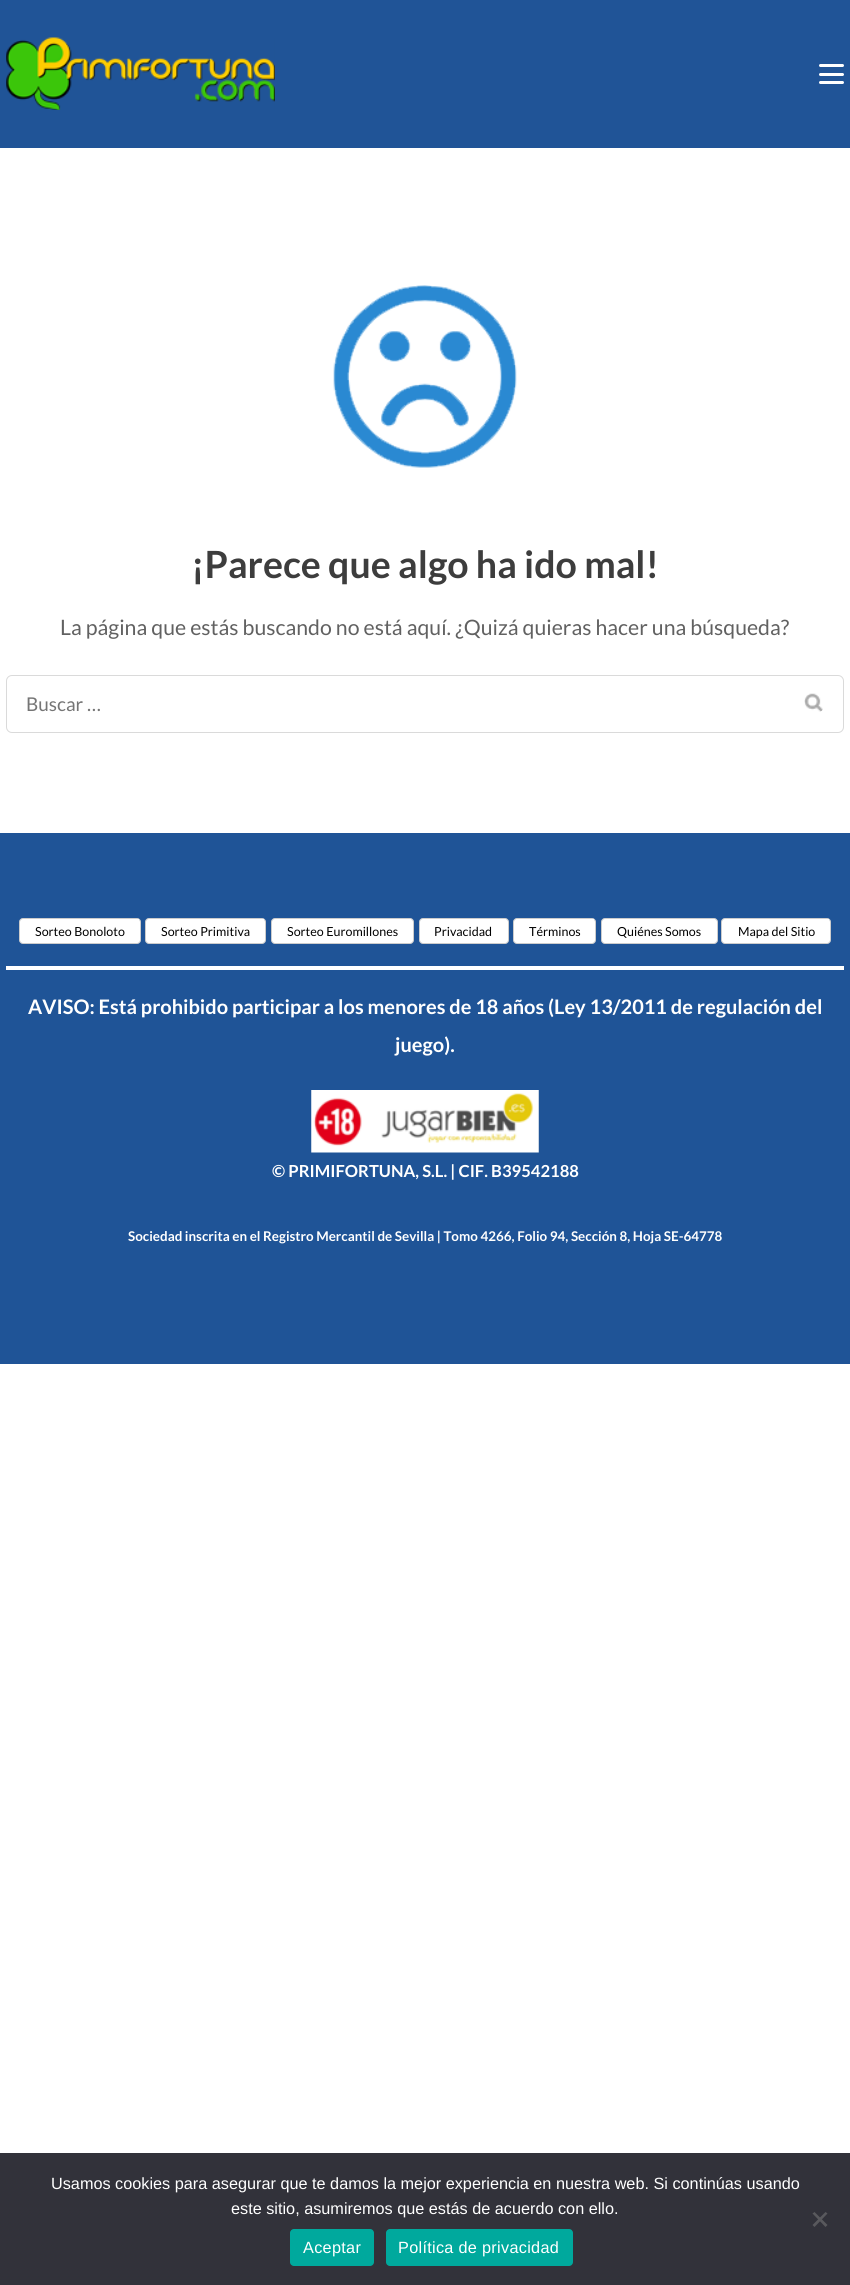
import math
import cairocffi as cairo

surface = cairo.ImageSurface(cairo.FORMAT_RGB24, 850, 2285)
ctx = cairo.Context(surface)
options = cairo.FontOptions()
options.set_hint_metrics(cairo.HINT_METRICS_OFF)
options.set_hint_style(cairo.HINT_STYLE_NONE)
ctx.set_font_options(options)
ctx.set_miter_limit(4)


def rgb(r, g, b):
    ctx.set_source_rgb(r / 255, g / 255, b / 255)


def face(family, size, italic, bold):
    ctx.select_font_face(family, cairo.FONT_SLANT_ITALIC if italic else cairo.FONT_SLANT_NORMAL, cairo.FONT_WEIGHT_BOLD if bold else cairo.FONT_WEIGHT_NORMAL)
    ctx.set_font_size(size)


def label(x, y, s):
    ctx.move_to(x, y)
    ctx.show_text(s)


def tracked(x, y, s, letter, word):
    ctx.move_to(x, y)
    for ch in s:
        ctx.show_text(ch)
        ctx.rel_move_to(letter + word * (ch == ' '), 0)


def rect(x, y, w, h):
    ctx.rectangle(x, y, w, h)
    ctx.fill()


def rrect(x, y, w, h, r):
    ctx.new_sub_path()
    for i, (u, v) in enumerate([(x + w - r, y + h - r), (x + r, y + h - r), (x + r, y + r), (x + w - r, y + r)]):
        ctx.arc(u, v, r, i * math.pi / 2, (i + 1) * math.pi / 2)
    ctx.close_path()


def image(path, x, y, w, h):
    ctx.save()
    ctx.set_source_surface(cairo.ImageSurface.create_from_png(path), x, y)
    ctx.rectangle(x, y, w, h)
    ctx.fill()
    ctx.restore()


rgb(255, 255, 255)
ctx.paint()
rgb(32, 84, 151)
rect(0, 0, 850, 148)
image('image0.png', 6, 37, 269, 73)
rgb(255, 255, 255)
rrect(819, 64, 25, 3, 1.5)
ctx.fill()
rrect(819, 73, 25, 3, 1.5)
ctx.fill()
rrect(819, 81, 25, 3, 1.5)
ctx.fill()
image('image1.png', 333, 285, 184, 183)
face('Lato', 37.5, 0, 1)
rgb(61, 61, 61)
label(191, 578, '¡Parece que algo ha ido mal!')
face('Lato', 21.25, 0, 0)
rgb(97, 97, 97)
label(60, 635, 'La página que estás buscando no está aquí. ¿Quizá quieras hacer una búsqueda?')
rrect(6.5, 675.5, 837, 57, 5.5)
rgb(218, 218, 218)
ctx.set_line_width(1)
ctx.stroke()
face('Lato', 19, 0, 0)
rgb(117, 117, 117)
label(26, 711, 'Buscar …')
image('image2.png', 804, 693, 19, 19)
rgb(31, 84, 151)
rect(0, 833, 850, 531)
rgb(255, 255, 255)
rrect(19.5, 918.5, 121, 25, 3.5)
ctx.fill_preserve()
rgb(204, 204, 204)
ctx.stroke()
rgb(255, 255, 255)
rect(137, 919, 2, 1)
face('Lato', 12.5, 0, 0)
rgb(0, 0, 0)
label(35, 936, 'Sorteo Bonoloto')
rgb(255, 255, 255)
rrect(145.5, 918.5, 120, 25, 3.5)
ctx.fill_preserve()
rgb(204, 204, 204)
ctx.stroke()
rgb(255, 255, 255)
rect(262, 919, 2, 1)
rgb(0, 0, 0)
label(161, 936, 'Sorteo Primitiva')
rgb(255, 255, 255)
rrect(271.5, 918.5, 142, 25, 3.5)
ctx.fill_preserve()
rgb(204, 204, 204)
ctx.stroke()
rgb(255, 255, 255)
rect(410, 919, 1, 1)
rgb(0, 0, 0)
label(287, 936, 'Sorteo Euromillones')
rgb(255, 255, 255)
rrect(419.5, 918.5, 89, 25, 3.5)
ctx.fill_preserve()
rgb(204, 204, 204)
ctx.stroke()
rgb(255, 255, 255)
rect(505, 919, 1, 1)
rgb(0, 0, 0)
label(434, 936, 'Privacidad')
rgb(255, 255, 255)
rrect(513.5, 918.5, 82, 25, 3.5)
ctx.fill_preserve()
rgb(204, 204, 204)
ctx.stroke()
rgb(255, 255, 255)
rect(516, 919, 78, 1)
rgb(0, 0, 0)
label(529, 936, 'Términos')
rgb(255, 255, 255)
rrect(601.5, 918.5, 116, 25, 3.5)
ctx.fill_preserve()
rgb(204, 204, 204)
ctx.stroke()
rgb(255, 255, 255)
rect(714, 919, 1, 1)
rgb(0, 0, 0)
label(617, 936, 'Quiénes Somos')
rgb(255, 255, 255)
rrect(721.5, 918.5, 109, 25, 3.5)
ctx.fill_preserve()
rgb(204, 204, 204)
ctx.stroke()
rgb(255, 255, 255)
rect(827, 919, 2, 1)
rgb(0, 0, 0)
label(738, 936, 'Mapa del Sitio')
rgb(255, 255, 255)
rect(6, 966, 838, 4)
face('Lato', 20, 0, 1)
label(28, 1014, 'AVISO: Está prohibido participar a los menores de 18 años (Ley 13/2011 de regulación del')
label(395, 1052, 'juego).')
image('image3.png', 311, 1090, 228, 63)
face('Lato', 16.6, 0, 1)
label(272, 1177, '© PRIMIFORTUNA, S.L. | CIF. B39542188')
face('Lato', 13.4, 0, 1)
label(128, 1241, 'Sociedad inscrita en el Registro Mercantil de Sevilla | Tomo 4266, Folio 94, Sección 8, Hoja SE-64778')
rgb(50, 50, 58)
rect(0, 2153, 850, 132)
face('Liberation Sans', 16.25, 0, 0)
rgb(255, 255, 255)
label(51, 2189, 'Usamos cookies para asegurar que te damos la mejor experiencia en nuestra web. Si continúas usando')
label(231, 2214, 'este sitio, asumiremos que estás de acuerdo con ello.')
rgb(89, 89, 93)
ctx.new_path()
ctx.move_to(825.5, 2212)
ctx.line_to(827.5, 2213.5)
ctx.line_to(814.5, 2227)
ctx.line_to(812.5, 2225)
ctx.close_path()
ctx.fill()
ctx.new_path()
ctx.move_to(812.5, 2213.5)
ctx.line_to(814.5, 2212)
ctx.line_to(827.5, 2225)
ctx.line_to(825.5, 2227)
ctx.close_path()
ctx.fill()
rgb(0, 169, 157)
rrect(290, 2229, 84, 37, 4)
ctx.fill()
rgb(255, 255, 255)
tracked(303, 2253, 'Aceptar', 0.3, 0)
rgb(0, 169, 157)
rrect(386, 2229, 187, 37, 4)
ctx.fill()
rgb(255, 255, 255)
tracked(398, 2253, 'Política de privacidad', 0.3, 0)
surface.write_to_png('render.png')
